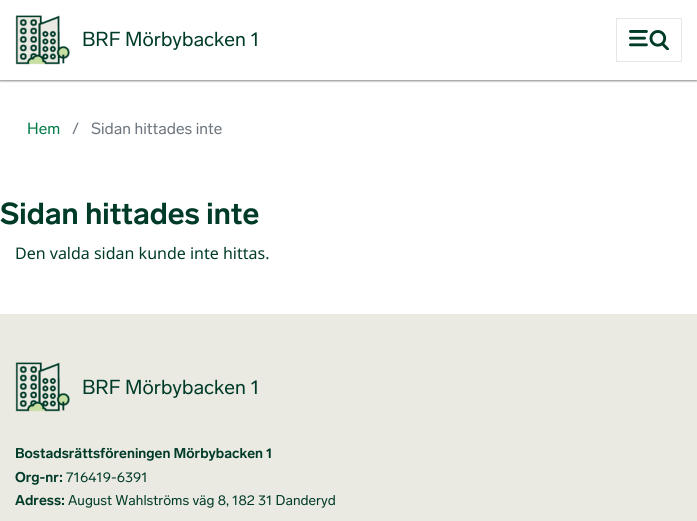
import math
import cairocffi as cairo

surface = cairo.ImageSurface(cairo.FORMAT_RGB24, 697, 521)
ctx = cairo.Context(surface)
options = cairo.FontOptions()
options.set_hint_metrics(cairo.HINT_METRICS_OFF)
options.set_hint_style(cairo.HINT_STYLE_NONE)
ctx.set_font_options(options)
ctx.set_miter_limit(4)


def rgb(r, g, b):
    ctx.set_source_rgb(r / 255, g / 255, b / 255)


def face(family, size, italic, bold):
    ctx.select_font_face(family, cairo.FONT_SLANT_ITALIC if italic else cairo.FONT_SLANT_NORMAL, cairo.FONT_WEIGHT_BOLD if bold else cairo.FONT_WEIGHT_NORMAL)
    ctx.set_font_size(size)


def label(x, y, s):
    ctx.move_to(x, y)
    ctx.show_text(s)


def rect(x, y, w, h):
    ctx.rectangle(x, y, w, h)
    ctx.fill()


def rrect(x, y, w, h, r):
    ctx.new_sub_path()
    for i, (u, v) in enumerate([(x + w - r, y + h - r), (x + r, y + h - r), (x + r, y + r), (x + w - r, y + r)]):
        ctx.arc(u, v, r, i * math.pi / 2, (i + 1) * math.pi / 2)
    ctx.close_path()


def soft_shadow(x, y, w, h, r, blur, alpha):
    ctx.push_group_with_content(cairo.CONTENT_ALPHA)
    ctx.set_operator(cairo.OPERATOR_SOURCE)
    for i in range(15, -16, -2):
        e = blur * i / 6
        if min(w, h) + 2 * e > 0:
            ctx.set_source_rgba(0, 0, 0, alpha * math.erfc((i - 1) / 8.5) / 2)
            rrect(x - e, y - e, w + 2 * e, h + 2 * e, max(0, min(r + e + blur * .6, min(w, h) / 2 + e)))
            ctx.fill()
    ctx.mask(ctx.pop_group())


def image(path, x, y, w, h):
    ctx.save()
    ctx.set_source_surface(cairo.ImageSurface.create_from_png(path), x, y)
    ctx.rectangle(x, y, w, h)
    ctx.fill()
    ctx.restore()


rgb(255, 255, 255)
ctx.paint()
ctx.save()
ctx.rectangle(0, 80, 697, 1)
ctx.clip()
rgb(0, 0, 0)
soft_shadow(0, 1, 697, 80, 0, 0.5, 0.14)
ctx.restore()
ctx.save()
ctx.rectangle(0, 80, 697, 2)
ctx.clip()
rgb(0, 0, 0)
soft_shadow(0, 2, 697, 80, 0, 0.5, 0.12)
ctx.restore()
ctx.save()
ctx.rectangle(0, 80, 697, 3)
ctx.clip()
rgb(0, 0, 0)
soft_shadow(0, 1, 697, 80, 0, 1.5, 0.2)
ctx.restore()
image('image0.png', 15, 15, 55, 50)
face('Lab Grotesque', 20, 0, 0)
rgb(0, 59, 41)
label(82, 46, 'BRF Mörbybacken 1')
ctx.rectangle(616.5, 18.5, 65, 43)
rgb(230, 230, 230)
ctx.set_line_width(1)
ctx.stroke()
image('image1.png', 629, 30, 40, 20)
face('Lab Grotesque', 16, 0, 0)
rgb(0, 123, 71)
label(27, 134, 'Hem')
rgb(108, 117, 125)
label(72, 134, '/')
label(91, 134, 'Sidan hittades inte')
face('Lab Grotesque', 30, 0, 1)
rgb(0, 59, 41)
label(0, 224, 'Sidan hittades inte')
face('Noto Sans', 16, 0, 0)
label(15, 259, 'Den valda sidan kunde inte hittas.')
rgb(234, 233, 226)
rect(0, 314, 697, 207)
image('image2.png', 15, 362, 55, 50)
face('Lab Grotesque', 20, 0, 0)
rgb(0, 59, 41)
label(82, 394, 'BRF Mörbybacken 1')
face('Lab Grotesque', 14, 0, 1)
label(15, 458, 'Bostadsrättsföreningen Mörbybacken 1')
label(15, 482, 'Org-nr:')
face('Lab Grotesque', 14, 0, 0)
label(66, 482, '716419-6391')
face('Lab Grotesque', 14, 0, 1)
label(15, 505, 'Adress:')
face('Lab Grotesque', 14, 0, 0)
label(68, 505, 'August Wahlströms väg 8, 182 31 Danderyd')
surface.write_to_png('render.png')
